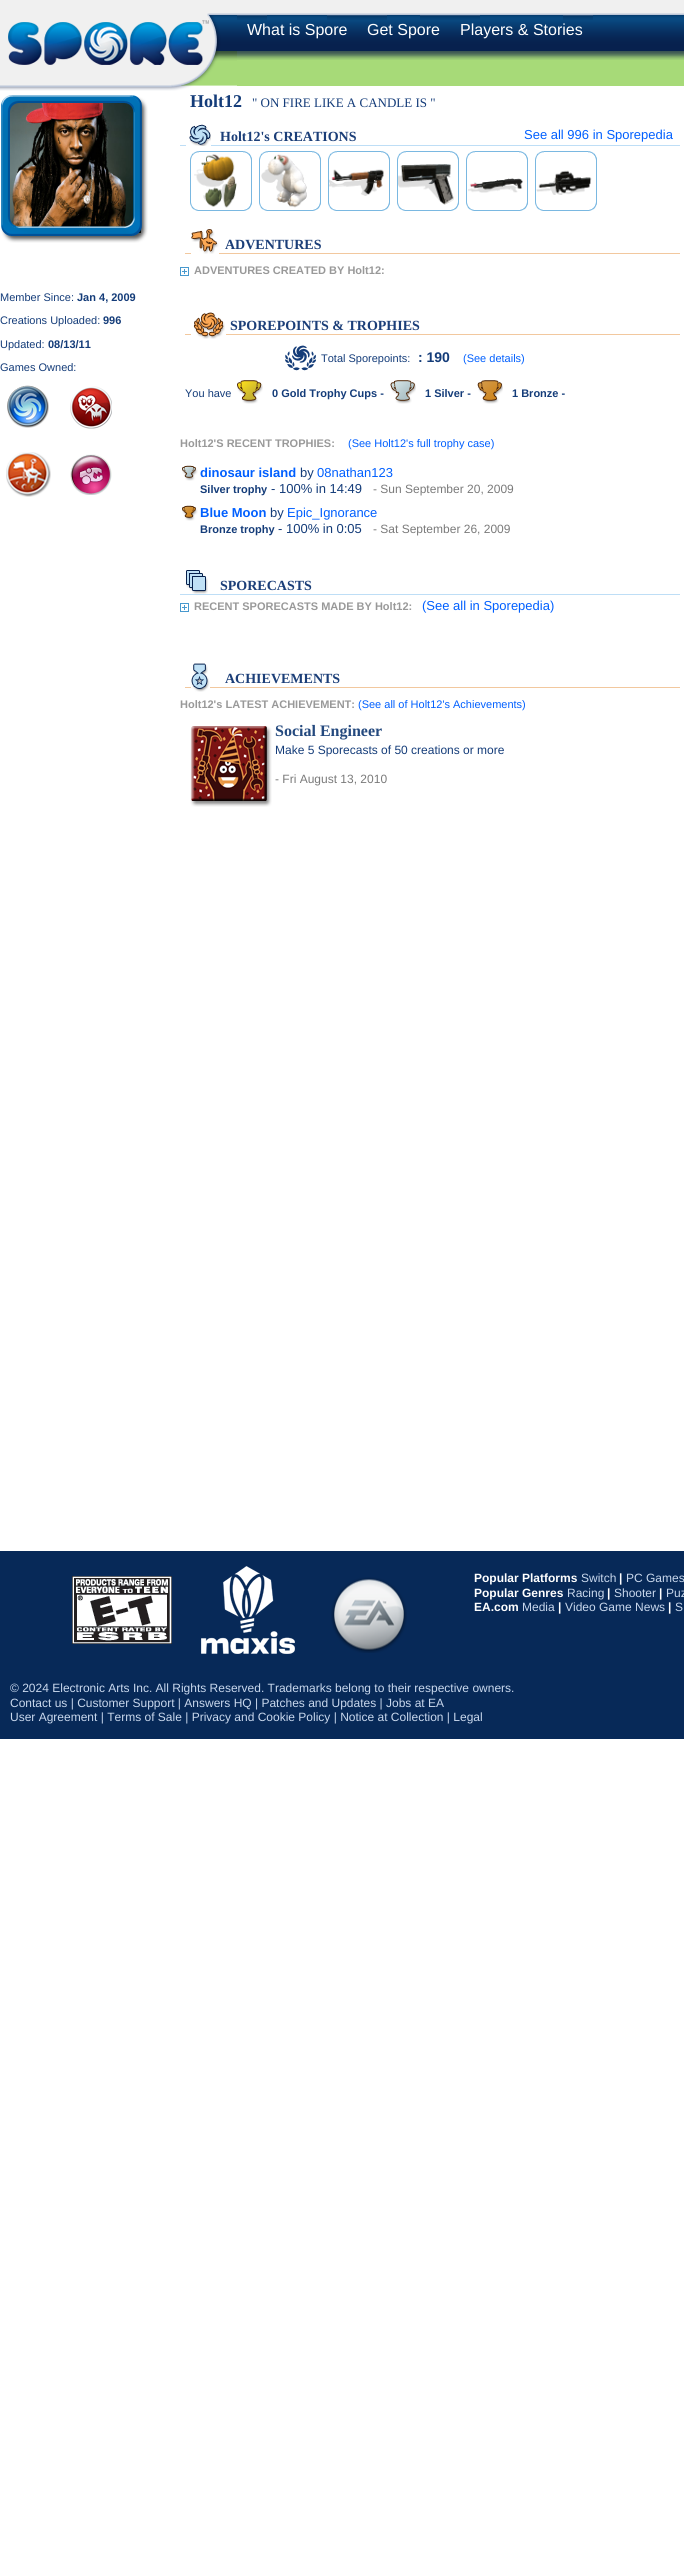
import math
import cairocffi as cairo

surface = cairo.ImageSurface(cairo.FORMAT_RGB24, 684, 2564)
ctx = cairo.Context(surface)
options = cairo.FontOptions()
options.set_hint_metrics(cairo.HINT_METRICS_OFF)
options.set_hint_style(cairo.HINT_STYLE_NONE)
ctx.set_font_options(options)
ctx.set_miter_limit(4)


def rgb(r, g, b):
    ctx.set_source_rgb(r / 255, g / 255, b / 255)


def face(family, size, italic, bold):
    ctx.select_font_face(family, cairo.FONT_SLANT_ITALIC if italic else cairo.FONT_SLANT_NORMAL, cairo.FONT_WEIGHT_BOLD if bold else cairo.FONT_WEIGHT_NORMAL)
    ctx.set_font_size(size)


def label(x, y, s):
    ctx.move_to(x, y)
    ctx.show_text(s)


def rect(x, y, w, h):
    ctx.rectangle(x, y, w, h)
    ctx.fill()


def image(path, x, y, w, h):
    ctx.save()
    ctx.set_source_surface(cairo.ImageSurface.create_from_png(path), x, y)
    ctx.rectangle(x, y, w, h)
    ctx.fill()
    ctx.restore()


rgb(255, 255, 255)
ctx.paint()
image('image0.png', 0, 0, 237, 91)
image('image1.png', 237, 0, 447, 51)
image('image2.png', 237, 15, 30, 5)
image('image2.png', 327, 15, 30, 5)
face('Liberation Sans', 16, 0, 0)
rgb(255, 255, 255)
label(247, 35, 'What is Spore')
image('image2.png', 357, 15, 30, 5)
image('image2.png', 420, 15, 30, 5)
label(367, 35, 'Get Spore')
image('image2.png', 450, 15, 30, 5)
image('image2.png', 563, 15, 30, 5)
label(460, 35, 'Players & Stories')
rgb(167, 218, 120)
rect(237, 51, 447, 35)
image('image3.png', 237, 51, 447, 9)
image('image5.png', 9, 101, 132, 132)
image('image4.png', 1, 95, 147, 148)
face('Liberation Sans', 11, 0, 0)
rgb(20, 60, 121)
label(0, 301, 'Member Since:')
face('Liberation Sans', 11, 0, 1)
label(77, 301, 'Jan 4, 2009')
face('Liberation Sans', 11, 0, 0)
label(0, 324, 'Creations Uploaded:')
face('Liberation Sans', 11, 0, 1)
label(103, 324, '996')
face('Liberation Sans', 11, 0, 0)
label(0, 348, 'Updated:')
face('Liberation Sans', 11, 0, 1)
label(48, 348, '08/13/11')
face('Liberation Sans', 11, 0, 0)
label(0, 371, 'Games Owned:')
image('image6.png', 7, 385, 42, 43)
image('image7.png', 70, 386, 42, 43)
image('image8.png', 6, 452, 45, 45)
image('image9.png', 70, 454, 42, 41)
face('Liberation Serif', 18, 0, 1)
label(190, 107, 'Holt12')
face('Liberation Serif', 13, 0, 0)
label(252, 107, '" ON FIRE LIKE A CANDLE IS "')
rgb(190, 222, 246)
rect(180, 145, 500, 1)
rgb(255, 255, 255)
rect(186, 145, 25, 1)
image('image10.png', 189, 124, 22, 22)
face('Liberation Serif', 14, 0, 1)
rgb(27, 62, 120)
label(220, 141, 'Holt12\'s CREATIONS')
face('Liberation Sans', 13, 0, 0)
rgb(0, 95, 255)
label(524, 139, 'See all 996 in Sporepedia')
image('image11.png', 190, 151, 62, 60)
image('image13.png', 194, 154, 43, 54)
image('image12.png', 191, 152, 61, 58)
image('image11.png', 259, 151, 62, 60)
image('image15.png', 261, 154, 46, 54)
image('image14.png', 260, 152, 61, 58)
image('image11.png', 328, 151, 62, 60)
image('image17.png', 329, 169, 55, 27)
image('image16.png', 329, 152, 61, 58)
image('image11.png', 397, 151, 62, 60)
image('image19.png', 398, 164, 56, 41)
image('image18.png', 398, 152, 61, 58)
image('image11.png', 466, 151, 62, 60)
image('image21.png', 468, 178, 55, 15)
image('image20.png', 467, 152, 61, 58)
image('image11.png', 535, 151, 62, 60)
image('image23.png', 536, 170, 56, 25)
image('image22.png', 536, 152, 61, 58)
rgb(242, 200, 158)
rect(185, 253, 495, 1)
rgb(255, 255, 255)
rect(191, 253, 28, 1)
image('image24.png', 191, 229, 28, 25)
face('Liberation Serif', 14, 0, 1)
rgb(27, 62, 120)
label(225, 249, 'ADVENTURES')
image('image25.png', 180, 267, 9, 9)
face('Liberation Sans', 11, 0, 1)
rgb(153, 153, 153)
label(194, 274, 'ADVENTURES CREATED BY Holt12:')
rgb(242, 200, 158)
rect(185, 334, 495, 1)
rgb(255, 255, 255)
rect(191, 334, 35, 1)
image('image26.png', 193, 312, 32, 27)
face('Liberation Serif', 14, 0, 1)
rgb(27, 62, 120)
label(230, 330, 'SPOREPOINTS & TROPHIES')
image('image27.png', 285, 345, 31, 26)
face('Liberation Sans', 11, 0, 0)
rgb(20, 60, 121)
label(321, 362, 'Total Sporepoints:')
face('Liberation Sans', 14, 0, 1)
label(418, 362, ': 190')
face('Liberation Sans', 11, 0, 0)
rgb(0, 95, 255)
label(463, 362, '(See details)')
rgb(20, 60, 121)
label(185, 397, 'You have')
image('image28.png', 237, 380, 26, 24)
face('Liberation Sans', 11, 0, 1)
label(272, 397, '0 Gold Trophy Cups -')
image('image29.png', 390, 380, 26, 24)
label(425, 397, '1 Silver -')
image('image30.png', 477, 380, 26, 24)
label(512, 397, '1 Bronze -')
rgb(153, 153, 153)
label(180, 447, 'Holt12\'S RECENT TROPHIES:')
face('Liberation Sans', 11, 0, 0)
rgb(0, 95, 255)
label(348, 447, '(See Holt12\'s full trophy case)')
image('image31.png', 182, 465, 16, 16)
face('Liberation Sans', 13, 0, 1)
label(200, 477, 'dinosaur island')
face('Liberation Sans', 13, 0, 0)
rgb(20, 60, 121)
label(300, 477, 'by')
rgb(0, 95, 255)
label(317, 477, '08nathan123')
face('Liberation Sans', 11, 0, 1)
rgb(20, 60, 121)
label(200, 493, 'Silver trophy')
face('Liberation Sans', 13, 0, 0)
label(271, 493, '- 100% in 14:49')
face('Liberation Sans', 12, 0, 0)
rgb(122, 122, 122)
label(373, 493, '- Sun September 20, 2009')
image('image32.png', 182, 505, 16, 16)
face('Liberation Sans', 13, 0, 1)
rgb(0, 95, 255)
label(200, 517, 'Blue Moon')
face('Liberation Sans', 13, 0, 0)
rgb(20, 60, 121)
label(270, 517, 'by')
rgb(0, 95, 255)
label(287, 517, 'Epic_Ignorance')
face('Liberation Sans', 11, 0, 1)
rgb(20, 60, 121)
label(200, 533, 'Bronze trophy')
face('Liberation Sans', 13, 0, 0)
label(278, 533, '- 100% in 0:05')
face('Liberation Sans', 12, 0, 0)
rgb(122, 122, 122)
label(373, 533, '- Sat September 26, 2009')
rgb(190, 222, 246)
rect(180, 594, 500, 1)
image('image33.png', 186, 570, 22, 24)
face('Liberation Serif', 14, 0, 1)
rgb(27, 62, 120)
label(220, 590, 'SPORECASTS')
image('image25.png', 180, 603, 9, 9)
face('Liberation Sans', 11, 0, 1)
rgb(153, 153, 153)
label(194, 610, 'RECENT SPORECASTS MADE BY Holt12:')
face('Liberation Sans', 13, 0, 0)
rgb(0, 95, 255)
label(422, 610, '(See all in Sporepedia)')
rgb(242, 200, 158)
rect(185, 687, 495, 1)
rgb(255, 255, 255)
rect(191, 687, 19, 1)
image('image34.png', 191, 663, 19, 29)
face('Liberation Serif', 14, 0, 1)
rgb(27, 62, 120)
label(225, 683, 'ACHIEVEMENTS')
face('Liberation Sans', 11, 0, 1)
rgb(153, 153, 153)
label(180, 708, 'Holt12\'s LATEST ACHIEVEMENT:')
face('Liberation Sans', 11, 0, 0)
rgb(0, 95, 255)
label(358, 708, '(See all of Holt12\'s Achievements)')
image('image35.png', 190, 726, 82, 81)
face('Liberation Serif', 16, 0, 1)
rgb(36, 73, 126)
label(275, 736, 'Social Engineer')
face('Liberation Sans', 12, 0, 0)
rgb(20, 60, 121)
label(275, 754, 'Make 5 Sporecasts of 50 creations or more')
rgb(122, 122, 122)
label(275, 783, '- Fri August 13, 2010')
rgb(7, 41, 88)
rect(0, 1551, 684, 188)
image('image36.png', 72, 1576, 100, 68)
image('image37.png', 201, 1566, 94, 88)
image('image38.png', 331, 1577, 76, 76)
face('Liberation Sans', 12, 0, 1)
rgb(255, 255, 255)
label(474, 1582, 'Popular Platforms')
face('Liberation Sans', 12, 0, 0)
rgb(201, 216, 237)
label(581, 1582, 'Switch')
face('Liberation Sans', 12, 0, 1)
rgb(255, 255, 255)
label(619, 1582, '|')
face('Liberation Sans', 12, 0, 0)
rgb(201, 216, 237)
label(626, 1582, 'PC Games')
face('Liberation Sans', 12, 0, 1)
rgb(255, 255, 255)
label(474, 1597, 'Popular Genres')
face('Liberation Sans', 12, 0, 0)
rgb(201, 216, 237)
label(567, 1597, 'Racing')
face('Liberation Sans', 12, 0, 1)
rgb(255, 255, 255)
label(607, 1597, '|')
face('Liberation Sans', 12, 0, 0)
rgb(201, 216, 237)
label(614, 1597, 'Shooter')
face('Liberation Sans', 12, 0, 1)
rgb(255, 255, 255)
label(659, 1597, '|')
face('Liberation Sans', 12, 0, 0)
rgb(201, 216, 237)
label(666, 1597, 'Puz')
face('Liberation Sans', 12, 0, 1)
rgb(255, 255, 255)
label(474, 1611, 'EA.com')
face('Liberation Sans', 12, 0, 0)
rgb(201, 216, 237)
label(522, 1611, 'Media')
face('Liberation Sans', 12, 0, 1)
rgb(255, 255, 255)
label(558, 1611, '|')
face('Liberation Sans', 12, 0, 0)
rgb(201, 216, 237)
label(565, 1611, 'Video Game News')
face('Liberation Sans', 12, 0, 1)
rgb(255, 255, 255)
label(668, 1611, '|')
face('Liberation Sans', 12, 0, 0)
rgb(201, 216, 237)
label(675, 1611, 'S')
label(10, 1692, '© 2024 Electronic Arts Inc. All Rights Reserved. Trademarks belong to their respective owners.')
label(10, 1707, 'Contact us | Customer Support | Answers HQ | Patches and Updates | Jobs at EA')
label(10, 1721, 'User Agreement | Terms of Sale | Privacy and Cookie Policy | Notice at Collection | Legal')
surface.write_to_png('render.png')
